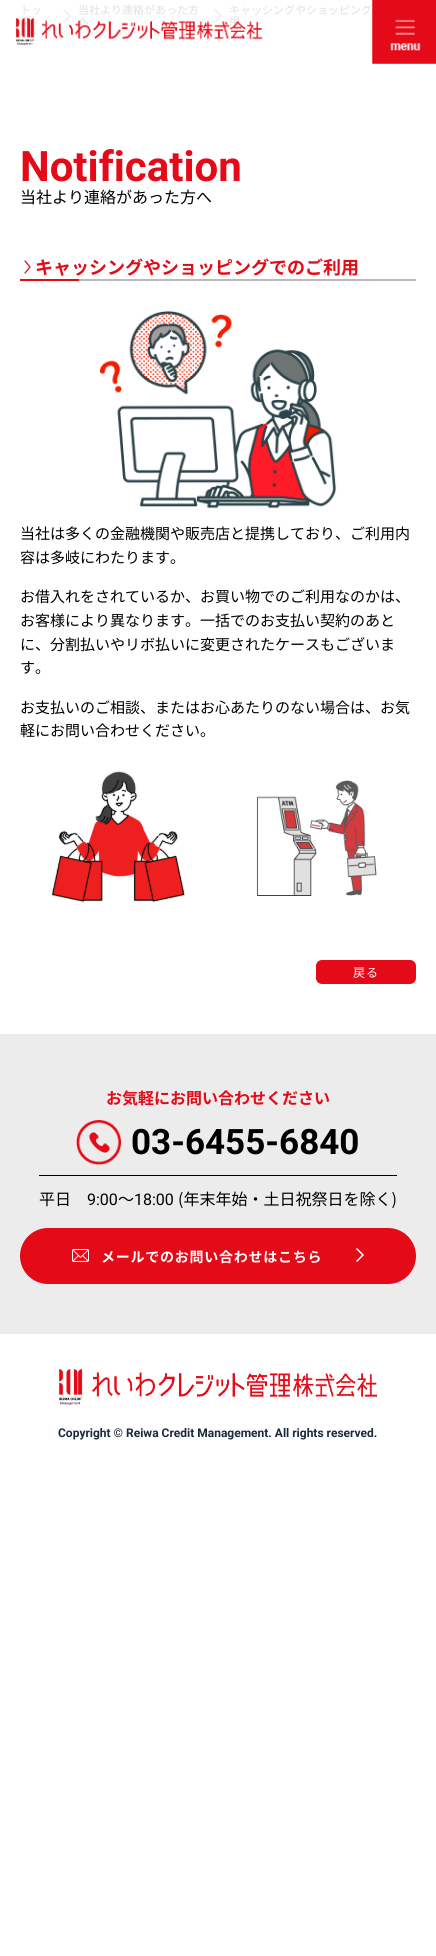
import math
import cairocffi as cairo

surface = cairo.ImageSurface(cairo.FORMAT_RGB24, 436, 1956)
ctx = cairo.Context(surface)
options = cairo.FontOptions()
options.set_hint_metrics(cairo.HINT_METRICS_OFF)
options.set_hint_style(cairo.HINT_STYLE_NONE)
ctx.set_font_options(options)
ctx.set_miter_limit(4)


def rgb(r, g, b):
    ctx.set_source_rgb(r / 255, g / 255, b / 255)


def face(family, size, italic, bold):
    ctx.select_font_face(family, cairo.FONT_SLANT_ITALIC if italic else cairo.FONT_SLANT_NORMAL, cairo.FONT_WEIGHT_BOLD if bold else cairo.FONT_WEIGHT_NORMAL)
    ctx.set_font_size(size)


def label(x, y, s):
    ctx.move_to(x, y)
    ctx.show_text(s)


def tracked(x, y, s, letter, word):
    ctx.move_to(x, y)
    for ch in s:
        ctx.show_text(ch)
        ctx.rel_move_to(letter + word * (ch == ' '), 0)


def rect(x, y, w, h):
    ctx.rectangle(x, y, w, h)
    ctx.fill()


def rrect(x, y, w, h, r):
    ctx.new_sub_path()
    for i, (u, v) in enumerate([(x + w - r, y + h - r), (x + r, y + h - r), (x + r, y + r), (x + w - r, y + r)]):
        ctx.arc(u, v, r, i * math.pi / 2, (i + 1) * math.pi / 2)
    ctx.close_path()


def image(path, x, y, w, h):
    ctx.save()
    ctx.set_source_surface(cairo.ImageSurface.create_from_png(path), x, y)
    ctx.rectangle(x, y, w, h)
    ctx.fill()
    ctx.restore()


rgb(255, 255, 255)
ctx.paint()
face('Noto Sans JP Medium', 11, 0, 0)
rgb(230, 230, 230)
label(20, 25, 'プ')
ctx.new_path()
ctx.move_to(63.5, 9.5)
ctx.line_to(70, 16)
ctx.line_to(63.5, 22.5)
ctx.set_line_width(1)
ctx.stroke()
label(78, 25, 'へ')
ctx.new_path()
ctx.move_to(214.5, 9.5)
ctx.line_to(221, 16)
ctx.line_to(214.5, 22.5)
ctx.stroke()
label(229, 25, '用')
image('image0.png', 16, 18, 247, 27)
image('image1.png', 372, 0, 64, 64)
label(20, 14, 'トッ')
label(78, 14, '当社より連絡があった方')
label(229, 14, 'キャッシングやショッピング')
face('Roboto', 42, 0, 1)
rgb(228, 10, 23)
label(20, 181, 'Notification')
face('Noto Sans JP', 16, 0, 0)
rgb(0, 0, 0)
label(20, 203, '当社より連絡があった方へ')
rgb(187, 184, 184)
rect(79, 279, 337, 2)
ctx.new_path()
ctx.move_to(25, 261)
ctx.line_to(30, 267)
ctx.move_to(25, 273)
ctx.line_to(30, 267)
rgb(213, 27, 27)
ctx.set_line_width(1.3)
ctx.set_line_cap(cairo.LINE_CAP_ROUND)
ctx.stroke()
face('Noto Sans JP', 18, 0, 1)
rgb(228, 10, 23)
label(35, 274, 'キャッシングやショッピングでのご利用')
rect(20, 279, 59, 2)
image('image2.png', 100, 310, 237, 199)
face('Noto Sans JP', 15, 0, 0)
rgb(0, 0, 0)
label(20, 539, '当社は多くの金融機関や販売店と提携しており、ご利用内')
label(20, 563, '容は多岐にわたります。')
label(20, 602, 'お借入れをされているか、お買い物でのご利用なのかは、')
label(20, 626, 'お客様により異なります。一括でのお支払い契約のあと')
label(20, 650, 'に、分割払いやリボ払いに変更されたケースもございま')
label(20, 673, 'す。')
label(20, 713, 'お支払いのご相談、またはお心あたりのない場合は、お気')
label(20, 736, '軽にお問い合わせください。')
image('image3.png', 51, 771, 134, 132)
image('image4.png', 256, 780, 121, 116)
rgb(228, 10, 23)
rrect(316, 960, 100, 24, 6)
ctx.fill()
face('Noto Sans JP', 12, 0, 0)
rgb(255, 255, 255)
tracked(353, 977, '戻る', 1, 0)
rgb(236, 236, 236)
rect(0, 1034, 436, 300)
face('Noto Sans JP', 16, 0, 1)
rgb(228, 10, 23)
label(106, 1104, 'お気軽にお問い合わせください')
image('image5.png', 76, 1120, 45, 45)
face('Roboto', 35, 0, 1)
rgb(0, 0, 0)
label(131, 1154, '03-6455-6840')
rect(39, 1175, 358, 1)
face('Noto Sans JP', 16, 0, 0)
label(39, 1205, '平日')
face('Roboto', 16, 0, 0)
label(87, 1205, '9:00')
face('Noto Sans JP', 16, 0, 0)
label(118, 1205, '～')
face('Roboto', 16, 0, 0)
label(134, 1205, '18:00')
face('Noto Sans JP', 16, 0, 0)
label(178, 1205, '(年末年始・土日祝祭日を除く)')
rgb(228, 10, 23)
rrect(20, 1228, 396, 56, 28)
ctx.fill()
image('image6.png', 72, 1249, 17, 13)
face('Noto Sans JP', 14, 0, 1)
rgb(255, 255, 255)
tracked(101, 1262, 'メールでのお問い合わせはこちら', 0.75, 0)
ctx.new_path()
ctx.move_to(356.5, 1248.5)
ctx.line_to(363, 1255)
ctx.line_to(356.5, 1261.5)
ctx.set_line_width(1.5)
ctx.set_line_cap(cairo.LINE_CAP_BUTT)
ctx.stroke()
image('image7.png', 59, 1369, 318, 36)
face('Roboto', 12, 0, 1)
rgb(26, 41, 61)
label(58, 1437, 'Copyright © Reiwa Credit Management. All rights reserved.')
surface.write_to_png('render.png')
